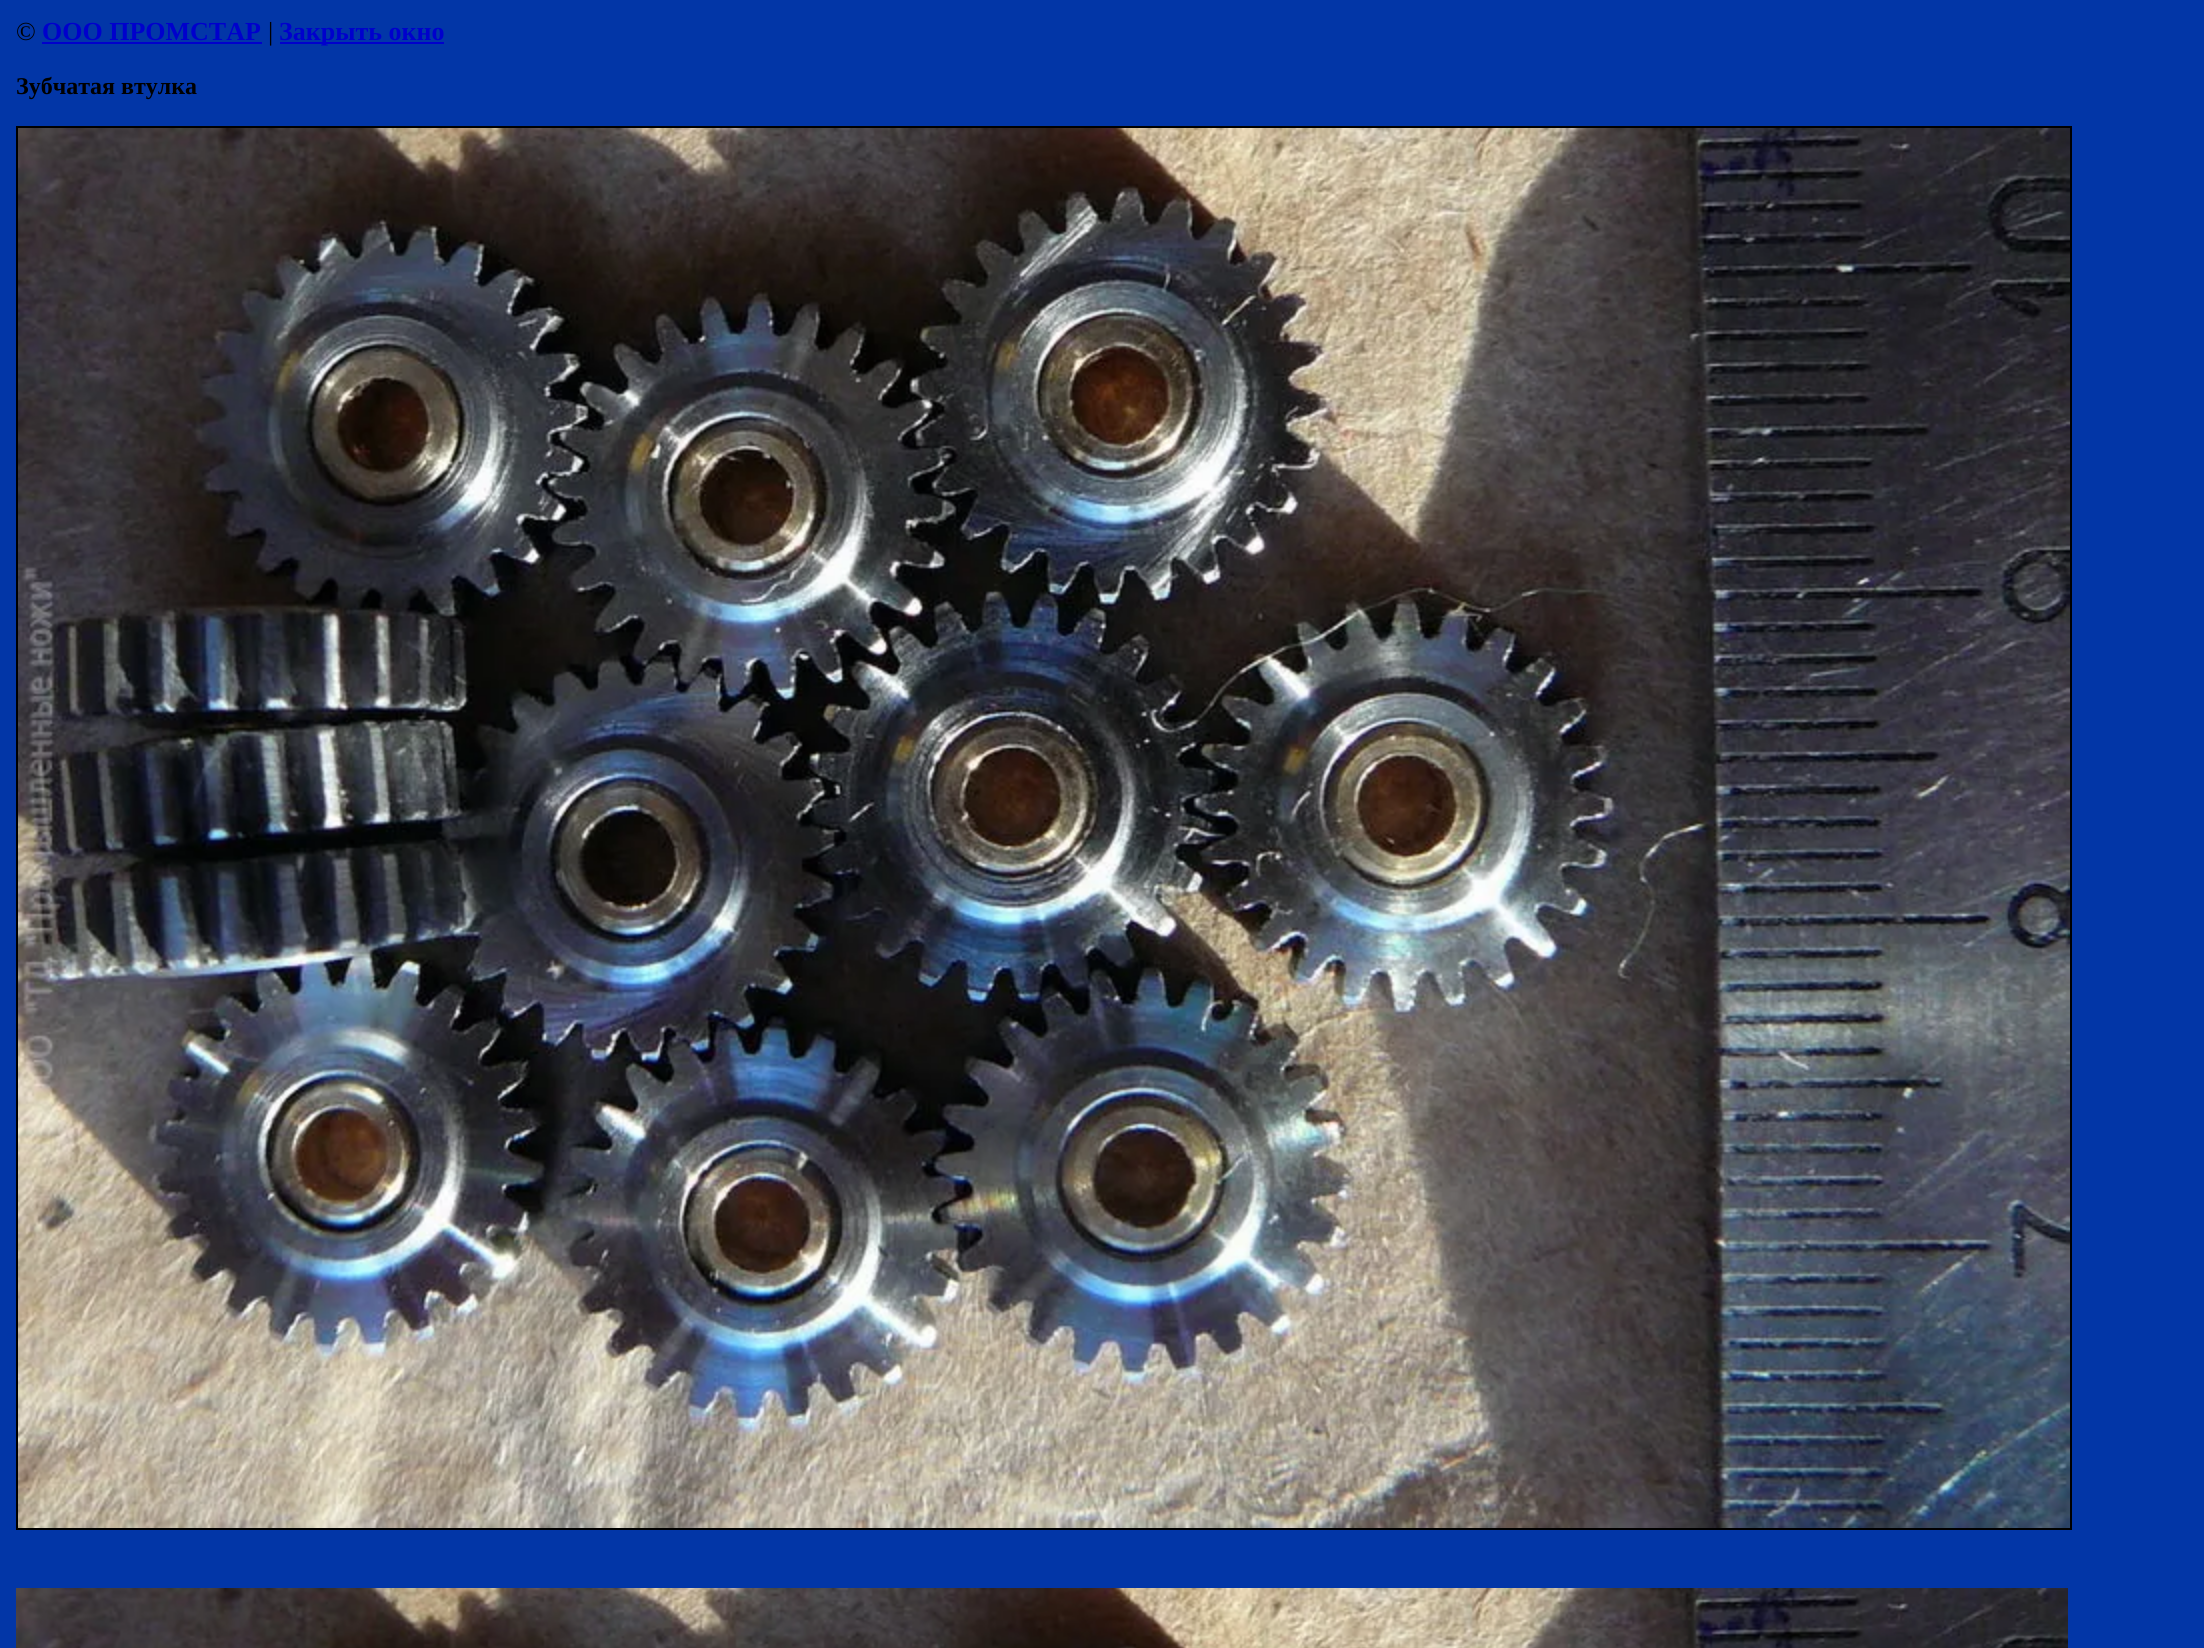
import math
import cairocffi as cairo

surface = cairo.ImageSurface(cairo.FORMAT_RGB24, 2204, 1648)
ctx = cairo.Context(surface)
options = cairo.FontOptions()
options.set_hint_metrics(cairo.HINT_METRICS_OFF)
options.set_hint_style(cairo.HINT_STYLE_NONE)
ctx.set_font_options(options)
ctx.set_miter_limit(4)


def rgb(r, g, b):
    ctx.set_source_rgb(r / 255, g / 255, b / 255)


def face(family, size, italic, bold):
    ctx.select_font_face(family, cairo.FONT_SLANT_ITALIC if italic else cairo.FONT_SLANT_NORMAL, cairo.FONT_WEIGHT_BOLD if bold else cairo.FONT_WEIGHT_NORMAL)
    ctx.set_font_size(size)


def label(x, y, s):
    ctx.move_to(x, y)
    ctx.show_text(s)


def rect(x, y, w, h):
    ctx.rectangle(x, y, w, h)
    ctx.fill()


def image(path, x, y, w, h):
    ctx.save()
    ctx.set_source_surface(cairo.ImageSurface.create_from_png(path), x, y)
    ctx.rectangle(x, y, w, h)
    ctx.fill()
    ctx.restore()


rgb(2, 54, 167)
ctx.paint()
face('Liberation Serif', 26, 0, 0)
rgb(0, 0, 0)
label(16, 40, '©')
face('Liberation Serif', 26, 0, 1)
rgb(0, 0, 204)
label(42, 40, 'ООО ПРОМСТАР')
rect(42, 42, 220, 2)
face('Liberation Serif', 26, 0, 0)
rgb(0, 0, 0)
label(268, 40, '|')
rgb(0, 0, 204)
rect(280, 42, 164, 2)
face('Liberation Serif', 26, 0, 1)
label(279, 40, 'Закрыть окно')
face('Liberation Serif', 24, 0, 1)
rgb(0, 0, 0)
label(16, 94, 'Зубчатая втулка')
ctx.rectangle(17, 127, 2054, 1402)
ctx.stroke()
image('image0.png', 18, 128, 2052, 1400)
image('image1.png', 16, 1588, 2052, 60)
surface.write_to_png('render.png')
